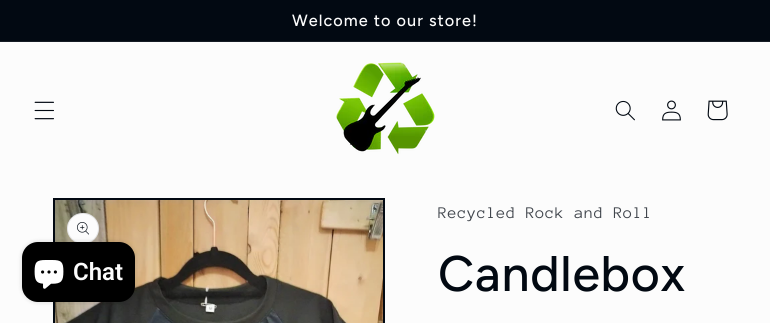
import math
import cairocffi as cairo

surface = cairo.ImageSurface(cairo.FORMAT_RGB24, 770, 323)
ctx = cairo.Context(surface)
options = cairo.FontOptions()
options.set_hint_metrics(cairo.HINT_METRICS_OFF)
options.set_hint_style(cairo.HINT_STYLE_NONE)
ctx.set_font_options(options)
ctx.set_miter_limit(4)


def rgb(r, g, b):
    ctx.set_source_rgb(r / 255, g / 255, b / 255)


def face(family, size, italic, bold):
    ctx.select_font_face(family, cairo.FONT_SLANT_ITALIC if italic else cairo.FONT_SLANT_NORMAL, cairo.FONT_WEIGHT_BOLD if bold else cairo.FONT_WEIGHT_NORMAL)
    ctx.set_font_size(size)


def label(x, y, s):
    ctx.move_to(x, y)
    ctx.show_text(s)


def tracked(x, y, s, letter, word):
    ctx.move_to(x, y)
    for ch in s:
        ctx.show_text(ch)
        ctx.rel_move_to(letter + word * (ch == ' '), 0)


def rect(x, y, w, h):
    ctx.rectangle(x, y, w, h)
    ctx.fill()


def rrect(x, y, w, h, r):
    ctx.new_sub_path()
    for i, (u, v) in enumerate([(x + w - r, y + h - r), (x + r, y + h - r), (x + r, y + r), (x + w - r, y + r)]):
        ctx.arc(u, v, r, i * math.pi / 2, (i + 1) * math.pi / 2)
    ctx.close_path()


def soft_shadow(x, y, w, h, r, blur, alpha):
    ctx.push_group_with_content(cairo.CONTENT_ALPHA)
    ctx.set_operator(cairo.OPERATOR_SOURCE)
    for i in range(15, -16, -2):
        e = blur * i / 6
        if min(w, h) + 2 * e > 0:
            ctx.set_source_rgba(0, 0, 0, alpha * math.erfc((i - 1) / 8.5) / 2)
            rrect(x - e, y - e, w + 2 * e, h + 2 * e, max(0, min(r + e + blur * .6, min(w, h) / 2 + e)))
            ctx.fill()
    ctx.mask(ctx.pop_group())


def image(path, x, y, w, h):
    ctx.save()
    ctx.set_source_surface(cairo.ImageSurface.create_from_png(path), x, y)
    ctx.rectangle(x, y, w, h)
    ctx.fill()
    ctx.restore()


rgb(252, 252, 252)
ctx.paint()
rgb(2, 9, 18)
rect(0, 0, 770, 41)
rgb(22, 28, 37)
rect(0, 41, 770, 1)
face('Figtree Medium', 16.25, 0, 0)
rgb(252, 252, 252)
tracked(292, 26, 'Welcome to our store!', 1.05, 0)
image('image0.png', 34, 101, 20, 19)
image('image1.png', 336, 62, 99, 93)
image('image2.png', 615, 100, 20, 21)
image('image3.png', 662, 100, 19, 21)
image('image4.png', 707, 100, 21, 21)
ctx.rectangle(54, 199, 330, 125)
rgb(2, 9, 18)
ctx.stroke()
image('image6.png', 55, 200, 328, 123)
rgb(252, 252, 252)
rrect(67, 213, 32, 31, 15.5)
ctx.fill()
rrect(67.5, 213.5, 31, 30, 15)
ctx.set_source_rgba(0.008, 0.035, 0.071, 0.1)
ctx.set_line_width(1)
ctx.stroke()
image('image7.png', 77, 222, 12, 13)
rgb(0, 0, 0)
soft_shadow(22, 242, 113, 60, 16, 2.5, 0.15)
rgb(0, 0, 0)
rrect(22, 242, 113, 60, 16)
ctx.fill()
image('image5.png', 34, 260, 30, 29)
face('Roboto SemiBold', 24, 0, 0)
rgb(252, 252, 252)
label(73, 280, 'Chat')
face('Anonymous Pro', 16.75, 0, 0)
rgb(65, 70, 77)
tracked(438, 218, 'Recycled Rock and Roll', 0.6, 0)
face('Figtree Medium', 50, 0, 0)
rgb(2, 9, 18)
tracked(438, 291, 'Candlebox', 0.75, 0)
surface.write_to_png('render.png')
